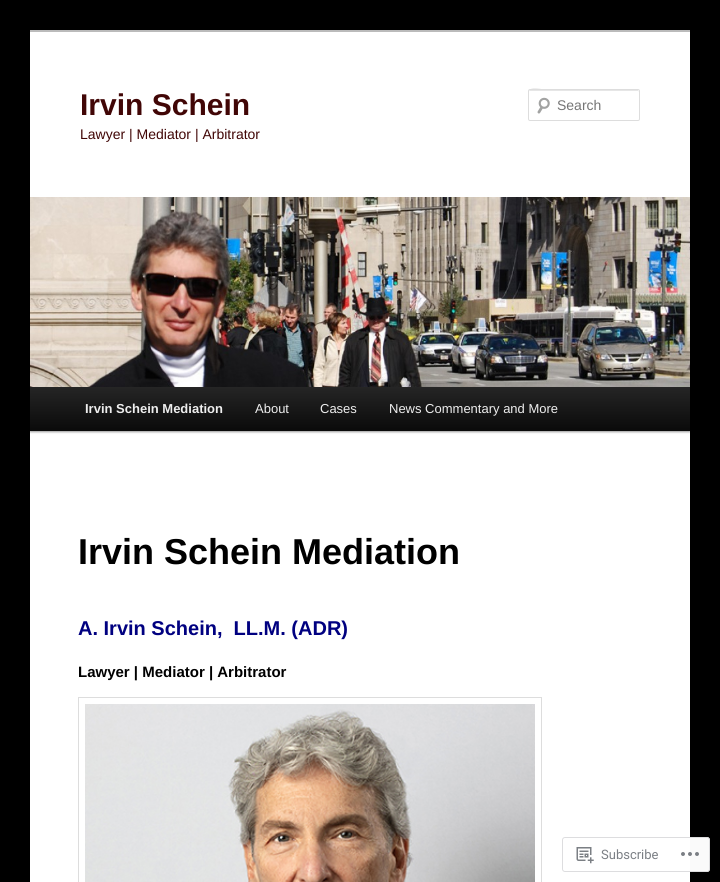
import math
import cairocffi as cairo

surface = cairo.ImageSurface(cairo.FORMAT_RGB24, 720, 882)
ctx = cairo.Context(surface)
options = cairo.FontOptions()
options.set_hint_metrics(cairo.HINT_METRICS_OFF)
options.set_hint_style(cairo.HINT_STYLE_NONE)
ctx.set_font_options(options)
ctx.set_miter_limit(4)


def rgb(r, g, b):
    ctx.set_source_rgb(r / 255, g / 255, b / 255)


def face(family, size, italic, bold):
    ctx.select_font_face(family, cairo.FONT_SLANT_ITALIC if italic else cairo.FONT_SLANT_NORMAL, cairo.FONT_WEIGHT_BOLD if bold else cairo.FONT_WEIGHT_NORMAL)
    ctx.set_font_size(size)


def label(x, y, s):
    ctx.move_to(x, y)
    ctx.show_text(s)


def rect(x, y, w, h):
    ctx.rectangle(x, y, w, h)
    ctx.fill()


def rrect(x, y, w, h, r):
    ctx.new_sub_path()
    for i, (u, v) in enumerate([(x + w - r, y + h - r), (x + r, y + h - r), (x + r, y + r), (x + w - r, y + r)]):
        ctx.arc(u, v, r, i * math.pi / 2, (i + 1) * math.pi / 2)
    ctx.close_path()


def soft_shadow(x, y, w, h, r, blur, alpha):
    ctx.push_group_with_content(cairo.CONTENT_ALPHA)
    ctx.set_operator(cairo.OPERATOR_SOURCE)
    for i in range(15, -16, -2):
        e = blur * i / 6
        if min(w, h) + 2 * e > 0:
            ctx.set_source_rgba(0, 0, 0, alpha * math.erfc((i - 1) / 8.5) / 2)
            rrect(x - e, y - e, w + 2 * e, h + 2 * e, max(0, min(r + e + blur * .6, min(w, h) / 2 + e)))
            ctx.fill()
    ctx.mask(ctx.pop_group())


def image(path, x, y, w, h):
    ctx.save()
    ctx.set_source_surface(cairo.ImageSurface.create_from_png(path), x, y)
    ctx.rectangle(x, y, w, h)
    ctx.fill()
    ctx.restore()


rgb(0, 0, 0)
ctx.paint()
rgb(255, 255, 255)
rect(30, 32, 660, 850)
rgb(187, 187, 187)
rect(30, 30, 660, 2)
face('Liberation Sans', 30, 0, 1)
rgb(65, 6, 6)
label(80, 115, 'Irvin Schein')
face('Liberation Sans', 14, 0, 0)
label(80, 139, 'Lawyer | Mediator | Arbitrator')
image('image0.png', 537, 97, 13, 17)
rgb(230, 230, 230)
ctx.new_path()
ctx.move_to(530, 91)
ctx.line_to(639, 91)
ctx.line_to(639, 92)
ctx.line_to(638, 90)
ctx.line_to(548, 90)
ctx.curve_to(544, 90, 529, 85, 529, 92)
ctx.curve_to(529, 91, 529, 91, 530, 91)
ctx.close_path()
ctx.fill()
rrect(528.5, 89.5, 111, 31, 1.5)
rgb(221, 221, 221)
ctx.set_line_width(1)
ctx.stroke()
rgb(117, 117, 117)
label(557, 110, 'Search')
rgb(0, 0, 0)
soft_shadow(30, 388, 660, 44, 0, 1, 0.4)
image('image1.png', 30, 197, 660, 190)
gradient = cairo.LinearGradient(360, 387, 360, 431)
gradient.add_color_stop_rgba(0, 0.145, 0.145, 0.145, 1)
gradient.add_color_stop_rgba(1, 0.039, 0.039, 0.039, 1)
ctx.set_source(gradient)
rect(30, 387, 660, 44)
face('Liberation Sans', 13, 0, 1)
rgb(238, 238, 238)
label(85, 413, 'Irvin Schein Mediation')
face('Liberation Sans', 13, 0, 0)
label(255, 413, 'About')
label(320, 413, 'Cases')
label(389, 413, 'News Commentary and More')
face('Liberation Sans', 36, 0, 1)
rgb(0, 0, 0)
label(78, 564, 'Irvin Schein Mediation')
face('Liberation Sans', 20, 0, 1)
rgb(0, 0, 128)
label(78, 635, 'A. Irvin Schein,  LL.M. (ADR)')
face('Liberation Sans', 15, 0, 1)
rgb(0, 0, 0)
label(78, 677, 'Lawyer | Mediator | Arbitrator')
ctx.rectangle(78.5, 697.5, 463, 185)
rgb(221, 221, 221)
ctx.stroke()
image('image2.png', 85, 704, 450, 178)
ctx.set_source_rgba(1, 1, 1, 0.98)
rrect(562, 837, 148, 35, 3)
ctx.fill()
rrect(562.5, 837.5, 147, 34, 2.5)
ctx.set_source_rgba(0.863, 0.863, 0.871, 0.98)
ctx.stroke()
image('image3.png', 576, 847, 18, 17)
face('Roboto', 13, 0, 0)
rgb(123, 127, 133)
label(601, 859, 'Subscribe')
image('image4.png', 681, 852, 18, 4)
surface.write_to_png('render.png')
